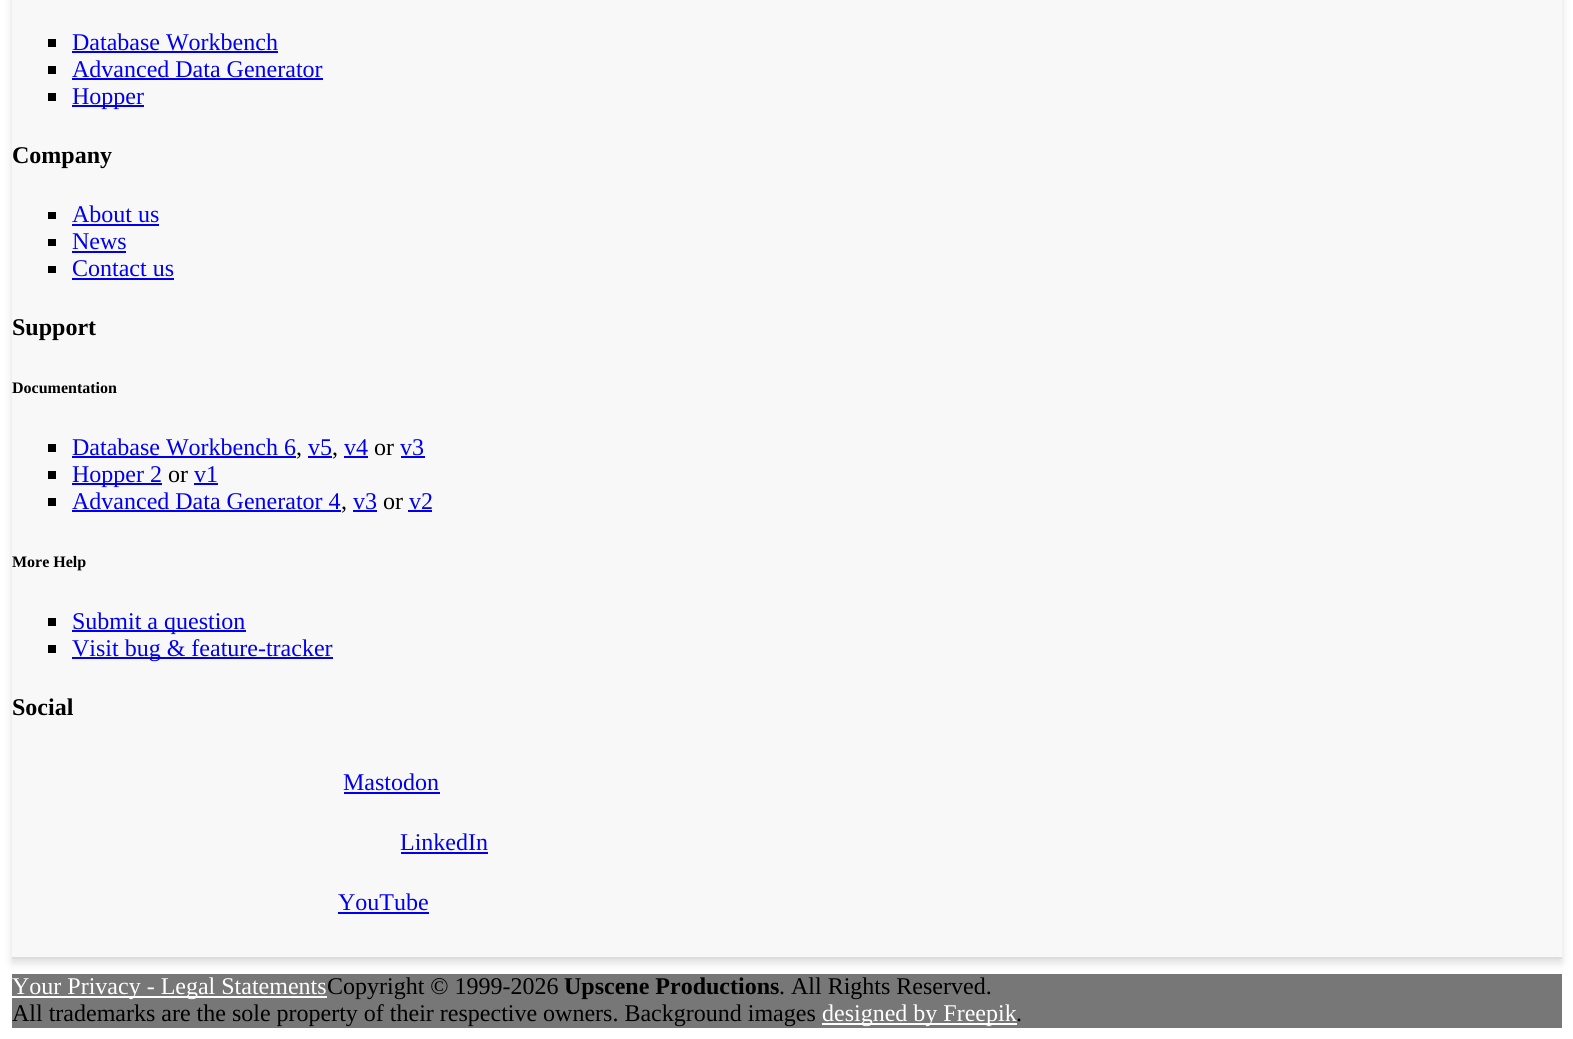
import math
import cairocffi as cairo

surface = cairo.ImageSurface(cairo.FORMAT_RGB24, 1573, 1039)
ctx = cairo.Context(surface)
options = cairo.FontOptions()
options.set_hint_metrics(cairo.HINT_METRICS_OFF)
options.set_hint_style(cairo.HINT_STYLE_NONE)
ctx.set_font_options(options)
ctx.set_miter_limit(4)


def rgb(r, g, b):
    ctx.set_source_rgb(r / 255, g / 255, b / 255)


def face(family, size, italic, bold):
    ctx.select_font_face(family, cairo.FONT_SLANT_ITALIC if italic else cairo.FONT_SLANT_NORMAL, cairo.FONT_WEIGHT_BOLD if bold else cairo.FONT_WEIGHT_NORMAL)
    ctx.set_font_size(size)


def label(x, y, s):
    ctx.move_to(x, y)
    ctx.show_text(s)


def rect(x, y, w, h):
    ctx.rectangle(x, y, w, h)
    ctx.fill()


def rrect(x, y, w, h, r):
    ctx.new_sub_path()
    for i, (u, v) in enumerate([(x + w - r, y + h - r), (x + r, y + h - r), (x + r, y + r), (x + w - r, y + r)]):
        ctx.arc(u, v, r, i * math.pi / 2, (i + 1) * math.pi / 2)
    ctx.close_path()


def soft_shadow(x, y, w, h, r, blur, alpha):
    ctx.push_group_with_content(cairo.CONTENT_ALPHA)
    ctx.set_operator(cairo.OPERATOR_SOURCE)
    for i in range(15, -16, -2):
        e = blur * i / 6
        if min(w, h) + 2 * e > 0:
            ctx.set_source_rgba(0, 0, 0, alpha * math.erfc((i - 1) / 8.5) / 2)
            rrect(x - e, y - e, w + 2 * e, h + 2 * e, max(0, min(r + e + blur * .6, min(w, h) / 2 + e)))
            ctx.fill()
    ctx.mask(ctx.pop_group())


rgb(255, 255, 255)
ctx.paint()
rgb(221, 221, 221)
soft_shadow(12, -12, 1550, 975, 0, 4, 1)
rgb(248, 248, 248)
rect(12, 0, 1550, 957)
rgb(221, 221, 221)
rect(12, 957, 1550, 2)
rgb(0, 0, 0)
rect(48, 39, 8, 8)
face('Liberation Serif', 24, 0, 0)
rgb(0, 0, 238)
label(72, 50, 'Database Workbench')
rect(72, 51, 206, 2)
rgb(0, 0, 0)
rect(48, 66, 8, 8)
rgb(0, 0, 238)
label(72, 77, 'Advanced Data Generator')
rect(72, 78, 251, 2)
rgb(0, 0, 0)
rect(48, 93, 8, 8)
rgb(0, 0, 238)
rect(72, 105, 72, 2)
label(72, 104, 'Hopper')
face('Liberation Serif', 24, 0, 1)
rgb(0, 0, 0)
label(12, 163, 'Company')
rect(48, 212, 8, 7)
face('Liberation Serif', 24, 0, 0)
rgb(0, 0, 238)
label(72, 222, 'About us')
rect(72, 224, 87, 2)
rgb(0, 0, 0)
rect(48, 239, 8, 7)
rgb(0, 0, 238)
label(72, 249, 'News')
rect(72, 251, 54, 2)
rgb(0, 0, 0)
rect(48, 266, 8, 7)
rgb(0, 0, 238)
label(72, 276, 'Contact us')
rect(72, 278, 102, 2)
face('Liberation Serif', 24, 0, 1)
rgb(0, 0, 0)
label(12, 335, 'Support')
face('Liberation Serif', 16, 0, 1)
label(12, 393, 'Documentation')
rect(48, 444, 8, 8)
face('Liberation Serif', 24, 0, 0)
rgb(0, 0, 238)
label(72, 455, 'Database Workbench 6')
rect(72, 456, 224, 2)
label(308, 455, 'v5')
rect(308, 456, 24, 2)
label(344, 455, 'v4')
rect(344, 456, 24, 2)
rgb(0, 0, 0)
label(374, 455, 'or')
rgb(0, 0, 238)
label(400, 455, 'v3')
rect(401, 456, 24, 2)
rgb(0, 0, 0)
label(296, 455, ',')
label(332, 455, ',')
rect(48, 471, 8, 8)
rgb(0, 0, 238)
rect(72, 483, 90, 2)
label(72, 482, 'Hopper 2')
rgb(0, 0, 0)
label(168, 482, 'or')
rgb(0, 0, 238)
label(194, 482, 'v1')
rect(194, 483, 24, 2)
rgb(0, 0, 0)
rect(48, 498, 8, 8)
rgb(0, 0, 238)
label(72, 509, 'Advanced Data Generator 4')
rect(72, 510, 269, 2)
label(353, 509, 'v3')
rect(353, 510, 24, 2)
rgb(0, 0, 0)
label(383, 509, 'or')
rgb(0, 0, 238)
label(409, 509, 'v2')
rect(408, 510, 24, 2)
rgb(0, 0, 0)
label(341, 509, ',')
face('Liberation Serif', 16, 0, 1)
label(12, 567, 'More Help')
rect(48, 618, 8, 8)
rgb(0, 0, 238)
rect(72, 630, 174, 2)
face('Liberation Serif', 24, 0, 0)
label(72, 629, 'Submit a question')
rgb(0, 0, 0)
rect(48, 645, 8, 8)
rgb(0, 0, 238)
rect(72, 657, 261, 2)
label(72, 656, 'Visit bug & feature-tracker')
face('Liberation Serif', 24, 0, 1)
rgb(0, 0, 0)
label(12, 715, 'Social')
face('Liberation Serif', 24, 0, 0)
rgb(0, 0, 238)
label(343, 790, 'Mastodon')
rect(344, 792, 96, 2)
label(400, 850, 'LinkedIn')
rect(401, 852, 87, 2)
label(338, 910, 'YouTube')
rect(338, 912, 91, 2)
rgb(119, 119, 119)
rect(12, 974, 1550, 54)
rgb(255, 255, 255)
rect(12, 996, 315, 2)
label(12, 994, 'Your Privacy - Legal Statements')
rgb(0, 0, 0)
label(327, 994, 'Copyright © 1999-2026')
face('Liberation Serif', 24, 0, 1)
label(564, 994, 'Upscene Productions')
face('Liberation Serif', 24, 0, 0)
label(779, 994, '. All Rights Reserved.')
label(12, 1021, 'All trademarks are the sole property of their respective owners. Background images')
rgb(255, 255, 255)
rect(822, 1023, 195, 2)
label(822, 1021, 'designed by Freepik')
rgb(0, 0, 0)
label(1016, 1021, '.')
surface.write_to_png('render.png')
